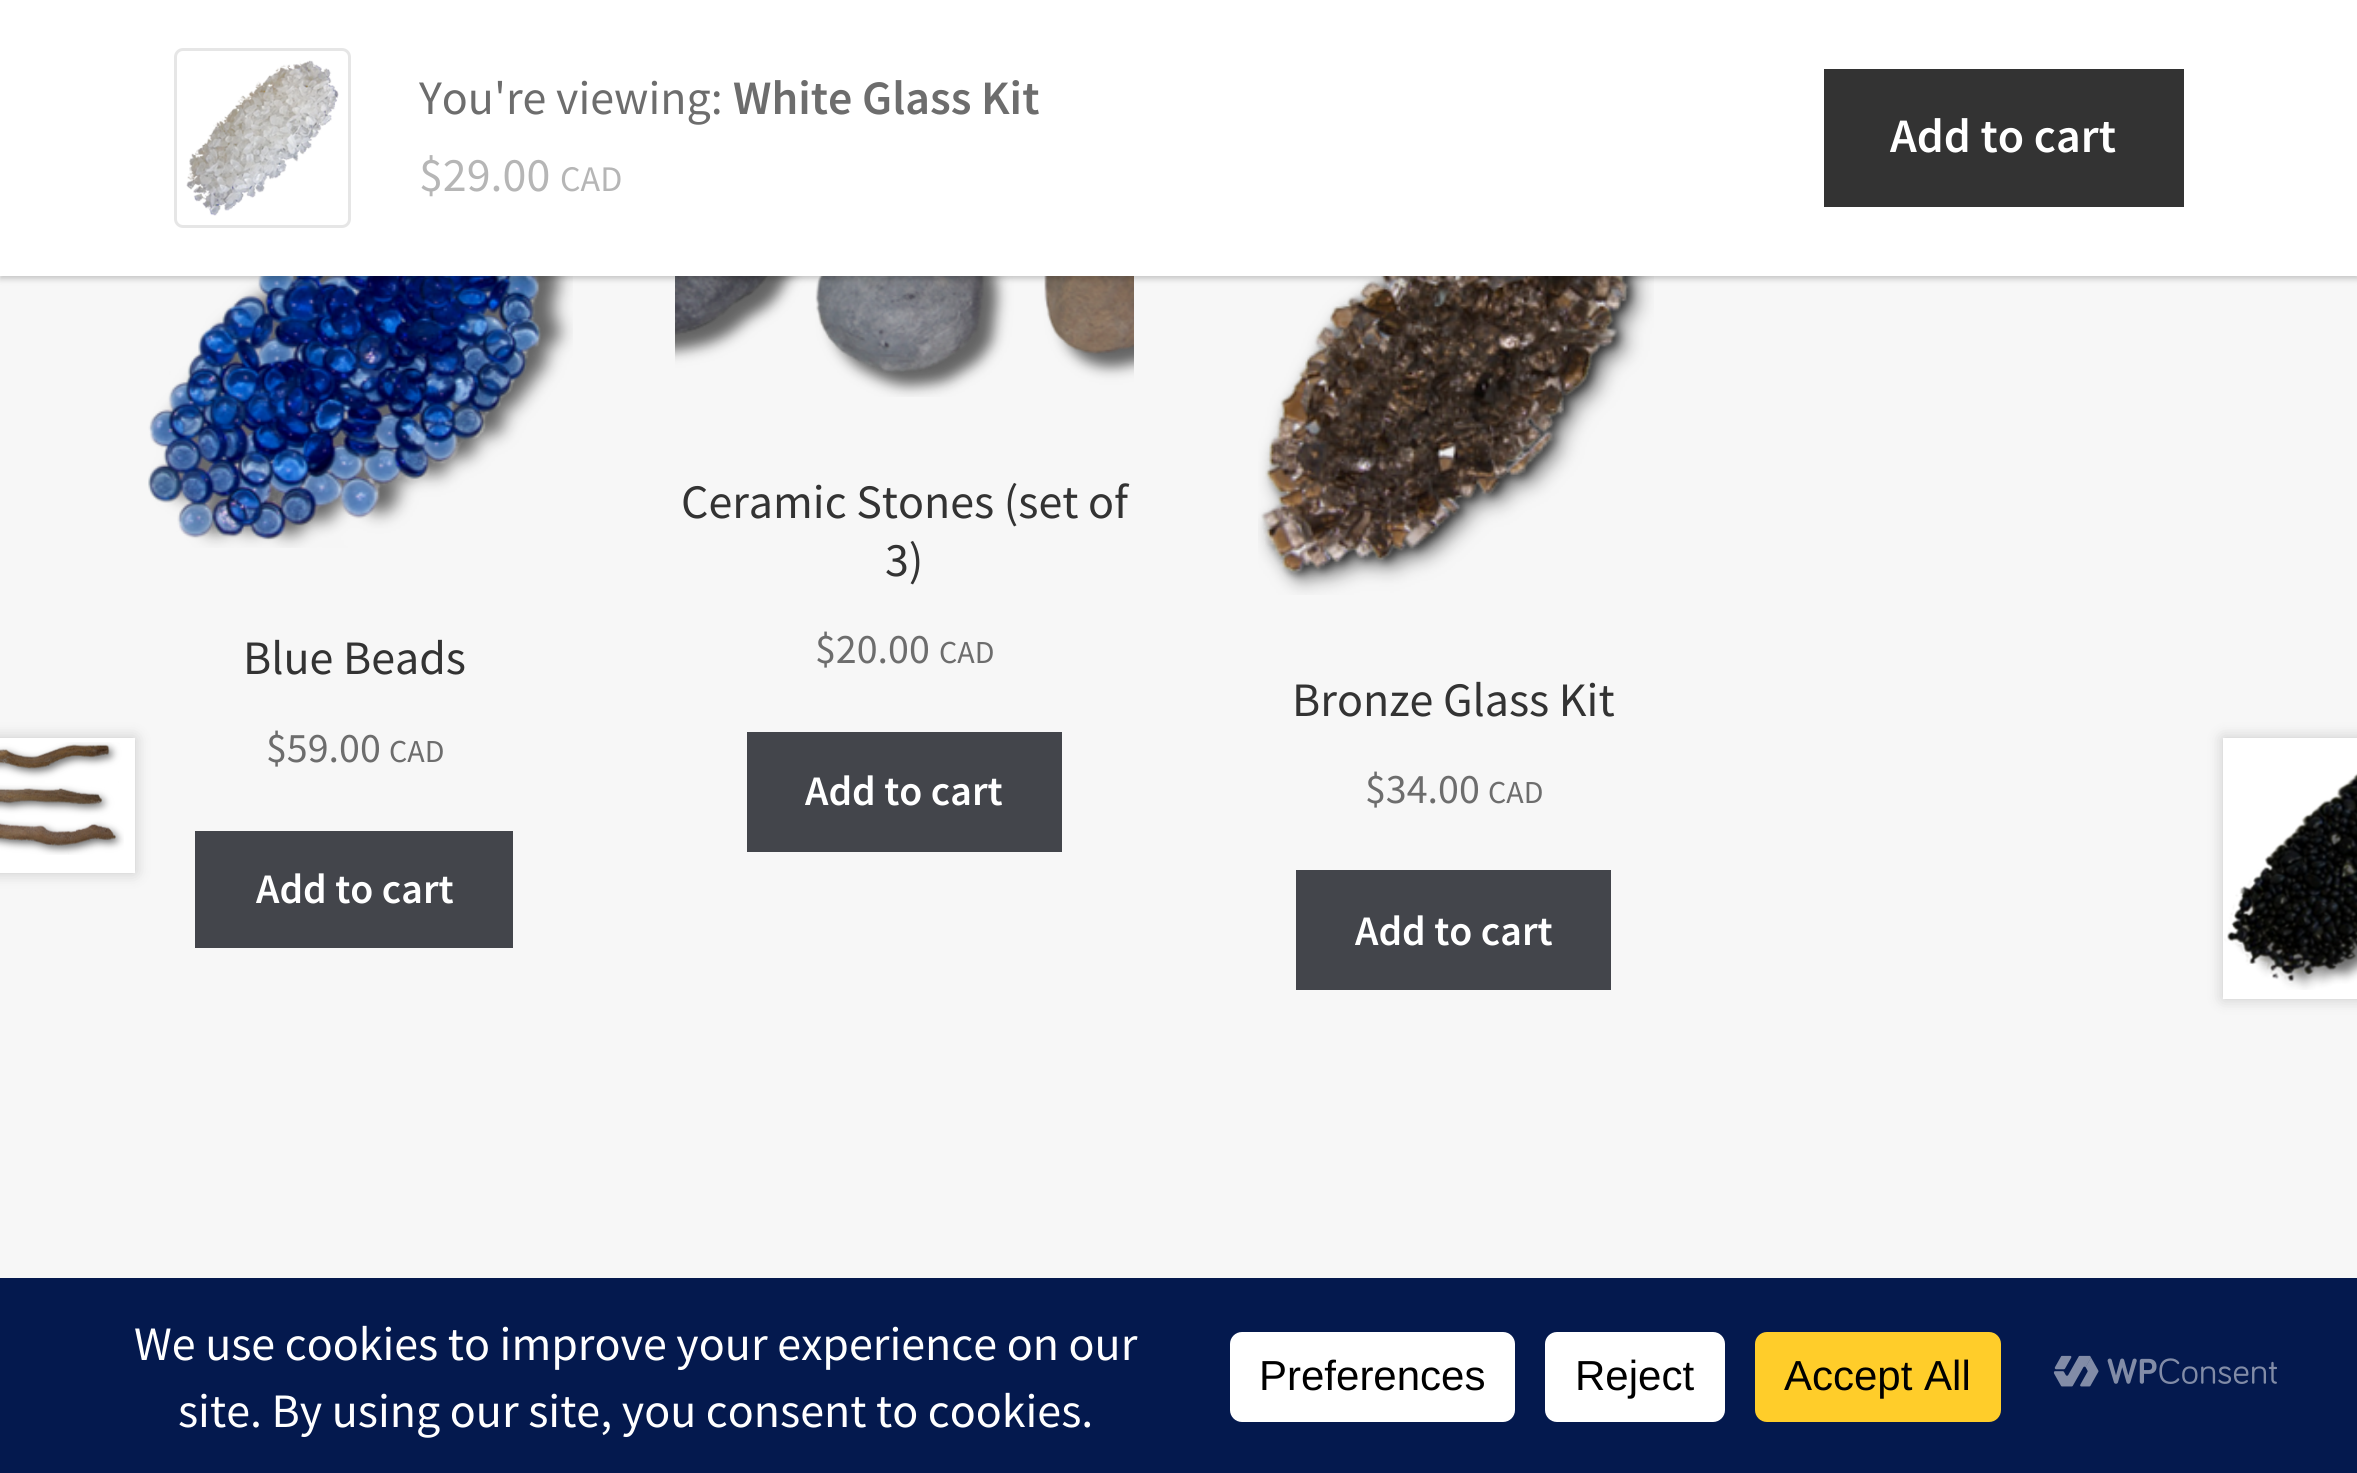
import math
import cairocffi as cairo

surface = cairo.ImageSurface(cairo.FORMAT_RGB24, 2357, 1473)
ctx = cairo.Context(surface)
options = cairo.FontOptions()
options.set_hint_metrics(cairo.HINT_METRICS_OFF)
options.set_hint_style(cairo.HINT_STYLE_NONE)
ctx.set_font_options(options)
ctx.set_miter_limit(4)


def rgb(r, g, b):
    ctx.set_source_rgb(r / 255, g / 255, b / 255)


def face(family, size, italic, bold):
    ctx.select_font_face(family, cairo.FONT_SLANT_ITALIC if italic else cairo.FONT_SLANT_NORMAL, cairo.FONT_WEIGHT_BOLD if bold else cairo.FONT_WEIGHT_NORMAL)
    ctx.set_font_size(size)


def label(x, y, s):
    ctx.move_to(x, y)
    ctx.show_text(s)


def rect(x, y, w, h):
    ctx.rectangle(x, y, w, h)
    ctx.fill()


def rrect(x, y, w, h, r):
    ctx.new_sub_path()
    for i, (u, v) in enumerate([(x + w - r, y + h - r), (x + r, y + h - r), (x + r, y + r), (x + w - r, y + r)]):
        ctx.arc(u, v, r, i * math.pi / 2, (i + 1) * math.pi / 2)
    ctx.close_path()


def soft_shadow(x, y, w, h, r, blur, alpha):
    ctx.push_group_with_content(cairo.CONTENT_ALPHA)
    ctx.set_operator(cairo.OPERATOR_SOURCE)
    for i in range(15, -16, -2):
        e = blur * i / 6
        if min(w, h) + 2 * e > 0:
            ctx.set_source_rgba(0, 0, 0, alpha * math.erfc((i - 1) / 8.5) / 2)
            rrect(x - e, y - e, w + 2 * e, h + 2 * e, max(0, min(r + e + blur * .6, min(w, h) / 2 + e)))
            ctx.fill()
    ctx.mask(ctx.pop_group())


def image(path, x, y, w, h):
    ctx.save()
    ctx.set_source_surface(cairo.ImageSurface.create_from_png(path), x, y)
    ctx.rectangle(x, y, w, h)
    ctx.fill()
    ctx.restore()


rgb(247, 247, 247)
ctx.paint()
image('image1.png', 148, 276, 425, 272)
image('image2.png', 675, 276, 459, 121)
image('image3.png', 1258, 276, 396, 319)
rgb(0, 0, 0)
soft_shadow(0, 3, 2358, 276, 0, 3, 0.2)
rgb(255, 255, 255)
rect(0, 0, 2357, 276)
rrect(175.5, 49.5, 174, 177, 7.5)
rgb(230, 230, 230)
ctx.set_line_width(3)
ctx.stroke()
image('image0.png', 186, 60, 153, 156)
face('Source Sans Pro', 48, 0, 0)
rgb(109, 109, 109)
label(419, 114, 'You\'re viewing:')
face('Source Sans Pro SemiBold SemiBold', 48, 0, 0)
label(733, 114, 'White Glass Kit')
face('Source Sans Pro', 48, 0, 0)
rgb(182, 182, 182)
label(419, 191, '$29.00')
face('Source Sans Pro', 36, 0, 0)
label(560, 191, 'CAD')
rgb(51, 51, 51)
rect(1824, 69, 360, 138)
face('Source Sans Pro SemiBold SemiBold', 48, 0, 0)
rgb(255, 255, 255)
label(1890, 152, 'Add to cart')
face('Source Sans Pro', 48, 0, 0)
rgb(51, 51, 51)
label(243, 674, 'Blue Beads')
face('Source Sans Pro', 42, 0, 0)
rgb(109, 109, 109)
label(266, 762, '$59.00')
face('Source Sans Pro', 32, 0, 0)
label(389, 762, 'CAD')
rgb(67, 69, 75)
rect(195, 831, 318, 117)
face('Source Sans Pro SemiBold SemiBold', 42, 0, 0)
rgb(255, 255, 255)
label(256, 903, 'Add to cart')
face('Source Sans Pro', 48, 0, 0)
rgb(51, 51, 51)
label(681, 518, 'Ceramic Stones (set of')
label(885, 576, '3)')
face('Source Sans Pro', 42, 0, 0)
rgb(109, 109, 109)
label(815, 663, '$20.00')
face('Source Sans Pro', 32, 0, 0)
label(939, 663, 'CAD')
rgb(67, 69, 75)
rect(747, 732, 315, 120)
face('Source Sans Pro SemiBold SemiBold', 42, 0, 0)
rgb(255, 255, 255)
label(805, 805, 'Add to cart')
face('Source Sans Pro', 48, 0, 0)
rgb(51, 51, 51)
label(1292, 716, 'Bronze Glass Kit')
face('Source Sans Pro', 42, 0, 0)
rgb(109, 109, 109)
label(1365, 803, '$34.00')
face('Source Sans Pro', 32, 0, 0)
label(1488, 803, 'CAD')
rgb(67, 69, 75)
rect(1296, 870, 315, 120)
face('Source Sans Pro SemiBold SemiBold', 42, 0, 0)
rgb(255, 255, 255)
label(1355, 945, 'Add to cart')
rgb(0, 0, 0)
soft_shadow(-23, 738, 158, 135, 0, 7.5, 0.2)
rgb(255, 255, 255)
rect(0, 738, 135, 135)
image('image4.png', 0, 742, 124, 113)
rgb(0, 0, 0)
soft_shadow(2223, 738, 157, 261, 0, 7.5, 0.2)
rgb(255, 255, 255)
rect(2223, 738, 134, 261)
image('image5.png', 2224, 773, 133, 217)
rgb(4, 25, 78)
rect(0, 1278, 2357, 195)
face('Source Sans Pro', 48, 0, 0)
rgb(255, 255, 255)
label(134, 1360, 'We use cookies to improve your experience on our')
label(178, 1427, 'site. By using our site, you consent to cookies.')
rrect(1230, 1332, 285, 90, 12)
ctx.fill()
face('Liberation Sans', 42, 0, 0)
rgb(0, 0, 0)
label(1259, 1390, 'Preferences')
rgb(255, 255, 255)
rrect(1545, 1332, 180, 90, 12)
ctx.fill()
rgb(0, 0, 0)
label(1575, 1390, 'Reject')
rgb(255, 205, 42)
rrect(1755, 1332, 246, 90, 12)
ctx.fill()
rgb(0, 0, 0)
label(1784, 1390, 'Accept All')
image('image6.png', 2053, 1355, 224, 32)
surface.write_to_png('render.png')
